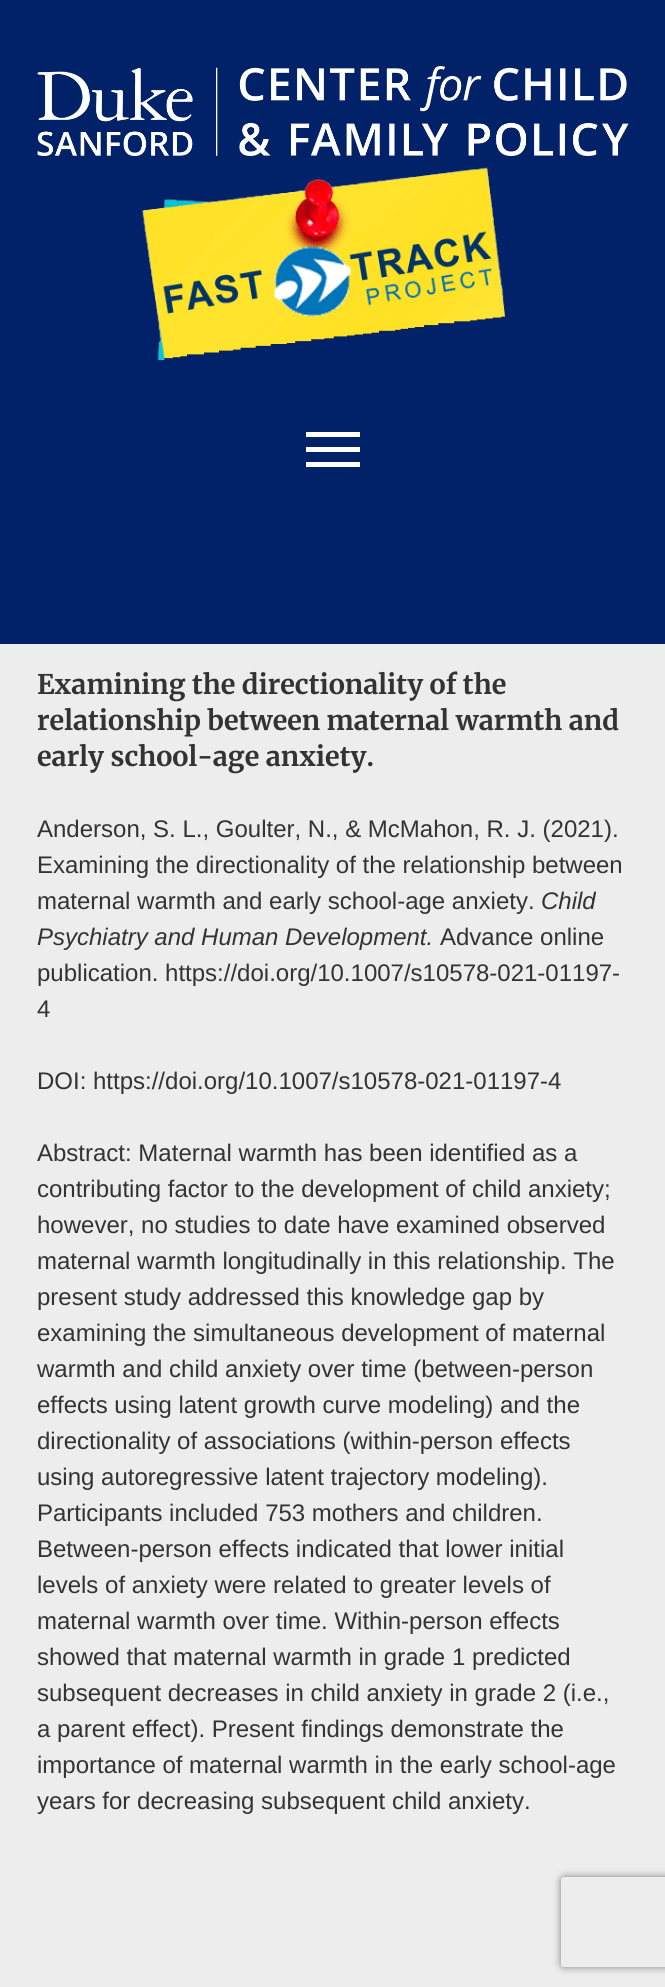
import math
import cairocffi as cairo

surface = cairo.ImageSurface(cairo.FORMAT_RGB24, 665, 1987)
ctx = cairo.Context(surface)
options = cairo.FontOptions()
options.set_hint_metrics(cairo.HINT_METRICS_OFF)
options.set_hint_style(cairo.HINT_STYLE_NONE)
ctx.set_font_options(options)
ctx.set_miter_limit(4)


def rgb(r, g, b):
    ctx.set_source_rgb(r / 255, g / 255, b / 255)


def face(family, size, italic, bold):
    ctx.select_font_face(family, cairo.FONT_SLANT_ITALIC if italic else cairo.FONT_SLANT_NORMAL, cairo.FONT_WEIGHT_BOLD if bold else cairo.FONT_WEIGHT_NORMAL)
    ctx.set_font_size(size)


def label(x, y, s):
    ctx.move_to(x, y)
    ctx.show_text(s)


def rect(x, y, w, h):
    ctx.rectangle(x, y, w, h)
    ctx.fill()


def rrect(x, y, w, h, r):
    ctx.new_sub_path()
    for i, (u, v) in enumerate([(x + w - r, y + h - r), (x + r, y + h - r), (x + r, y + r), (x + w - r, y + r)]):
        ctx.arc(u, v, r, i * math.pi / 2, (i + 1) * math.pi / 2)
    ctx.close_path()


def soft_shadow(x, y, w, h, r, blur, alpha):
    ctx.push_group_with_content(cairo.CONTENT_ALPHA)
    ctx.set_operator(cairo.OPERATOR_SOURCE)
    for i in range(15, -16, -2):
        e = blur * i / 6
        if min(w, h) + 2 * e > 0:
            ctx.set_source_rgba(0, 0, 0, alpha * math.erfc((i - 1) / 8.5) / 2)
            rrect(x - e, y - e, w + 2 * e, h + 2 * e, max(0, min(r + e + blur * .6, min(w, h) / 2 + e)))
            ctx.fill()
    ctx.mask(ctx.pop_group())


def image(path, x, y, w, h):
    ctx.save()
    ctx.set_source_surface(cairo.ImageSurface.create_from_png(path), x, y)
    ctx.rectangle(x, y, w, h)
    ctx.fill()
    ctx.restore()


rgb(237, 237, 237)
ctx.paint()
rgb(1, 33, 105)
rect(0, 0, 665, 644)
image('image0.png', 37, 66, 592, 90)
image('image1.png', 141, 167, 364, 193)
rgb(255, 255, 255)
rect(306, 432, 54, 5)
rect(306, 447, 54, 5)
rect(306, 462, 54, 5)
face('Merriweather', 27, 0, 1)
rgb(51, 51, 51)
label(37, 694, 'Examining the directionality of the')
label(37, 730, 'relationship between maternal warmth and')
label(37, 766, 'early school-age anxiety.')
face('Liberation Sans', 24, 0, 0)
label(37, 837, 'Anderson, S. L., Goulter, N., & McMahon, R. J. (2021).')
label(37, 873, 'Examining the directionality of the relationship between')
label(37, 909, 'maternal warmth and early school-age anxiety.')
face('Liberation Sans', 24, 1, 0)
label(541, 909, 'Child')
label(37, 945, 'Psychiatry and Human Development.')
face('Liberation Sans', 24, 0, 0)
label(440, 945, 'Advance online')
label(37, 981, 'publication. https://doi.org/10.1007/s10578-021-01197-')
label(37, 1017, '4')
label(37, 1089, 'DOI: https://doi.org/10.1007/s10578-021-01197-4')
label(37, 1161, 'Abstract: Maternal warmth has been identified as a')
label(37, 1197, 'contributing factor to the development of child anxiety;')
label(37, 1233, 'however, no studies to date have examined observed')
label(37, 1269, 'maternal warmth longitudinally in this relationship. The')
label(37, 1305, 'present study addressed this knowledge gap by')
label(37, 1341, 'examining the simultaneous development of maternal')
label(37, 1377, 'warmth and child anxiety over time (between-person')
label(37, 1413, 'effects using latent growth curve modeling) and the')
label(37, 1449, 'directionality of associations (within-person effects')
label(37, 1485, 'using autoregressive latent trajectory modeling).')
label(37, 1521, 'Participants included 753 mothers and children.')
label(37, 1557, 'Between-person effects indicated that lower initial')
label(37, 1593, 'levels of anxiety were related to greater levels of')
label(37, 1629, 'maternal warmth over time. Within-person effects')
label(37, 1665, 'showed that maternal warmth in grade 1 predicted')
label(37, 1701, 'subsequent decreases in child anxiety in grade 2 (i.e.,')
label(37, 1737, 'a parent effect). Present findings demonstrate the')
label(37, 1773, 'importance of maternal warmth in the early school-age')
label(37, 1809, 'years for decreasing subsequent child anxiety.')
ctx.save()
ctx.set_fill_rule(cairo.FILL_RULE_EVEN_ODD)
ctx.new_path()
ctx.move_to(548, 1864)
ctx.line_to(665, 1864)
ctx.line_to(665, 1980)
ctx.line_to(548, 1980)
ctx.close_path()
ctx.move_to(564, 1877)
ctx.line_to(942, 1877)
ctx.curve_to(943.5, 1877, 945, 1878.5, 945, 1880)
ctx.line_to(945, 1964)
ctx.curve_to(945, 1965.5, 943.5, 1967, 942, 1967)
ctx.line_to(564, 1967)
ctx.curve_to(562.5, 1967, 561, 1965.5, 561, 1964)
ctx.line_to(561, 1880)
ctx.curve_to(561, 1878.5, 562.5, 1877, 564, 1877)
ctx.close_path()
ctx.clip()
rgb(128, 128, 128)
soft_shadow(561, 1877, 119, 90, 3, 4, 1)
ctx.restore()
surface.write_to_png('render.png')
